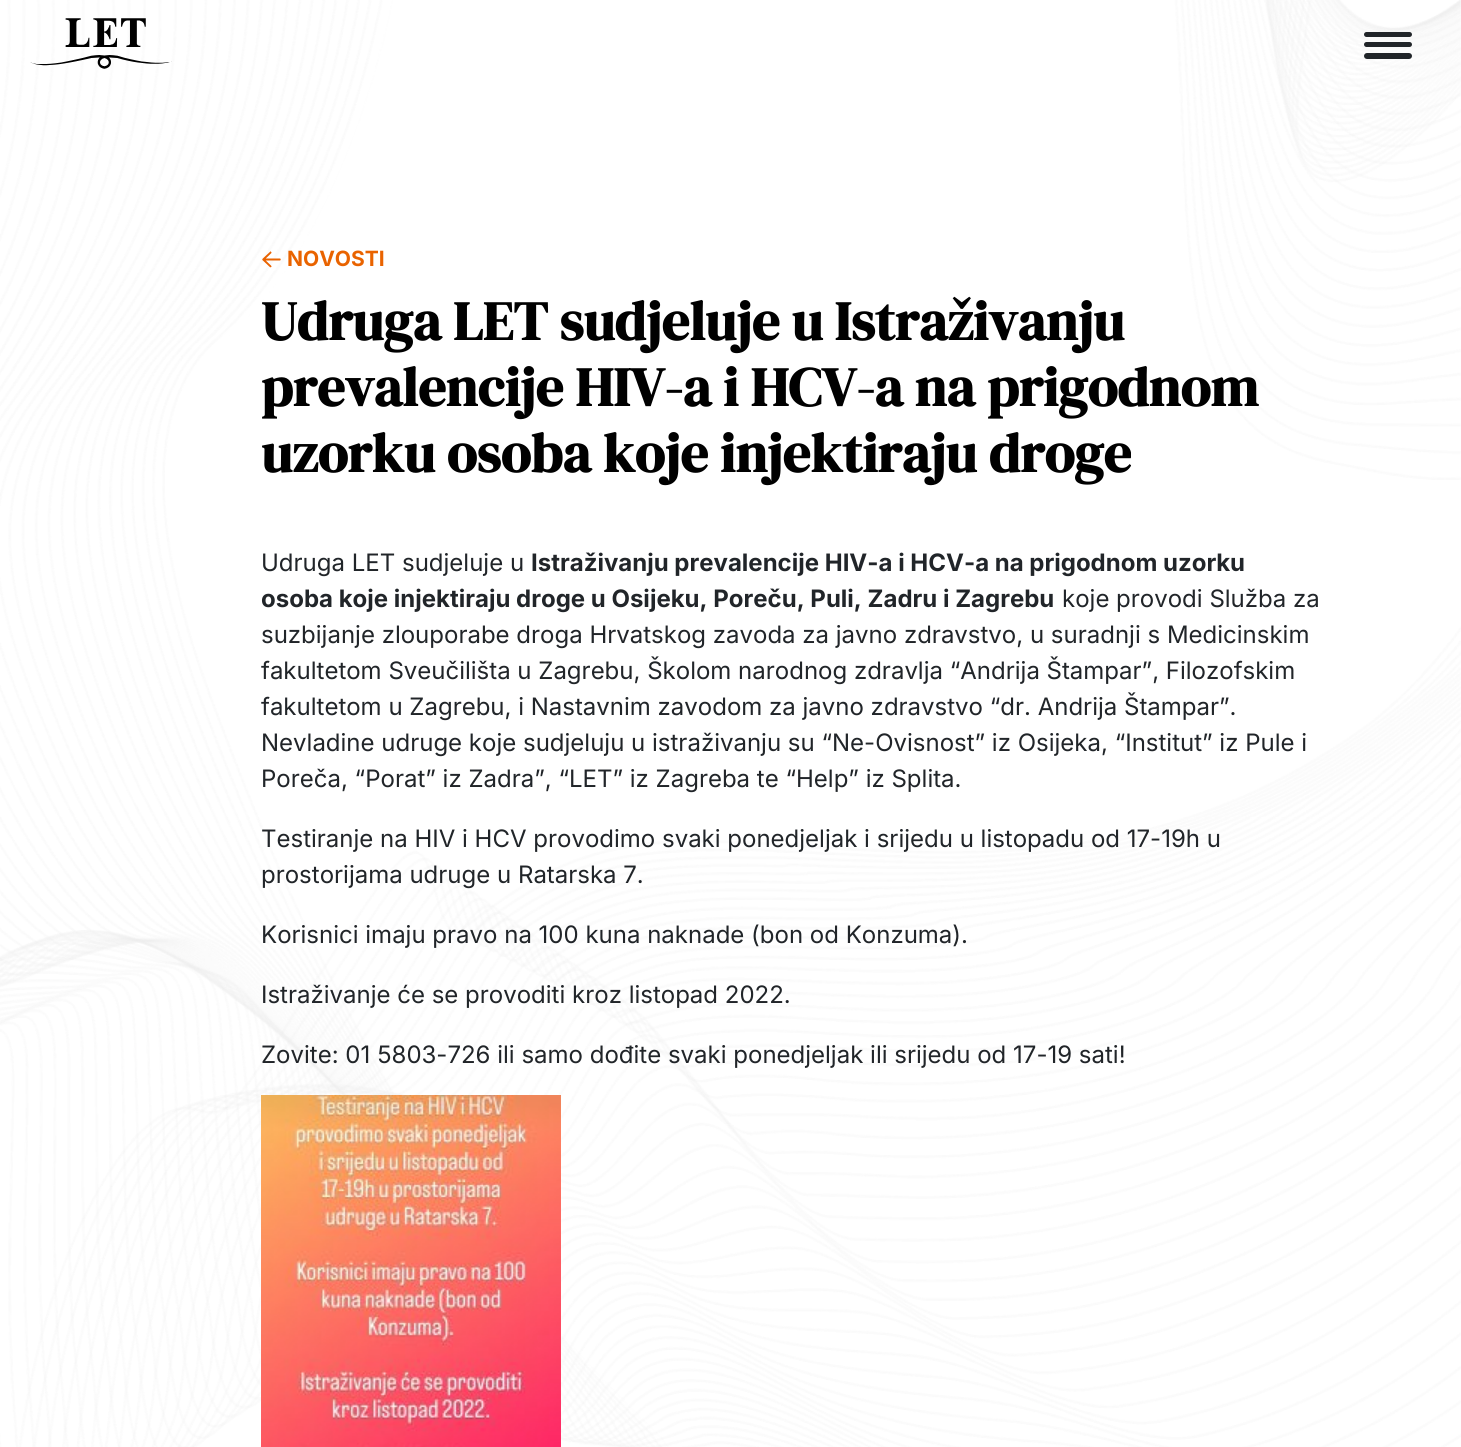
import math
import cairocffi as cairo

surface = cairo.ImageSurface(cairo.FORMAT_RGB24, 1461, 1447)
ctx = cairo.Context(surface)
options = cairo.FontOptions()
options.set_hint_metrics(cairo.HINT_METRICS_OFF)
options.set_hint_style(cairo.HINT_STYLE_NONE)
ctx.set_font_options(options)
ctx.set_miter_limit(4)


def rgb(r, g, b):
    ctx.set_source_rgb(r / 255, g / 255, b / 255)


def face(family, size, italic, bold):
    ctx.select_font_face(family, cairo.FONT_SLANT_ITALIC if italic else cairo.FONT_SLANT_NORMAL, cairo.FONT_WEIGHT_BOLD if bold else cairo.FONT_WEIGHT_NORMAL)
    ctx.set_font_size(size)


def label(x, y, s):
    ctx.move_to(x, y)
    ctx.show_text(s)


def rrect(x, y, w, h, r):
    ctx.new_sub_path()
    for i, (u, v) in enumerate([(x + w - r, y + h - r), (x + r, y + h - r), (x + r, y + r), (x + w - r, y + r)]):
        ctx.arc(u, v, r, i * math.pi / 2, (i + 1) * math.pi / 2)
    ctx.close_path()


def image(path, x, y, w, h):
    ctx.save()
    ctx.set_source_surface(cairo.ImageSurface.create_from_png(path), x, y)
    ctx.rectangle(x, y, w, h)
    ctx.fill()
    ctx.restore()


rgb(255, 255, 255)
ctx.paint()
image('image0.png', 0, 0, 1461, 1447)
image('image1.png', 30, 18, 142, 51)
rgb(33, 37, 41)
rrect(1364, 32, 48, 5, 2.5)
ctx.fill()
rrect(1364, 42, 48, 5, 2.5)
ctx.fill()
rrect(1364, 53, 48, 6, 3)
ctx.fill()
image('image2.png', 262, 251, 19, 17)
face('Inter', 21, 0, 1)
rgb(233, 99, 0)
label(287, 266, 'NOVOSTI')
face('DM Serif Display', 54.9, 0, 1)
rgb(0, 0, 0)
label(261, 340, 'Udruga LET sudjeluje u Istraživanju')
label(261, 406, 'prevalencije HIV-a i HCV-a na prigodnom')
label(261, 472, 'uzorku osoba koje injektiraju droge')
face('Inter', 24, 0, 0)
rgb(33, 37, 41)
label(261, 571, 'Udruga LET sudjeluje u')
face('Inter', 24, 0, 1)
label(531, 571, 'Istraživanju prevalencije HIV-a i HCV-a na prigodnom uzorku')
label(261, 607, 'osoba koje injektiraju droge u Osijeku, Poreču, Puli, Zadru i Zagrebu')
face('Inter', 24, 0, 0)
label(1062, 607, 'koje provodi Služba za')
label(261, 643, 'suzbijanje zlouporabe droga Hrvatskog zavoda za javno zdravstvo, u suradnji s Medicinskim')
label(261, 679, 'fakultetom Sveučilišta u Zagrebu, Školom narodnog zdravlja “Andrija Štampar”, Filozofskim')
label(261, 715, 'fakultetom u Zagrebu, i Nastavnim zavodom za javno zdravstvo “dr. Andrija Štampar”.')
label(261, 751, 'Nevladine udruge koje sudjeluju u istraživanju su “Ne-Ovisnost” iz Osijeka, “Institut” iz Pule i')
label(261, 787, 'Poreča, “Porat” iz Zadra”, “LET” iz Zagreba te “Help” iz Splita.')
label(261, 847, 'Testiranje na HIV i HCV provodimo svaki ponedjeljak i srijedu u listopadu od 17-19h u')
label(261, 883, 'prostorijama udruge u Ratarska 7.')
label(261, 943, 'Korisnici imaju pravo na 100 kuna naknade (bon od Konzuma).')
label(261, 1003, 'Istraživanje će se provoditi kroz listopad 2022.')
label(261, 1063, 'Zovite: 01 5803-726 ili samo dođite svaki ponedjeljak ili srijedu od 17-19 sati!')
image('image3.png', 261, 1095, 300, 352)
surface.write_to_png('render.png')
